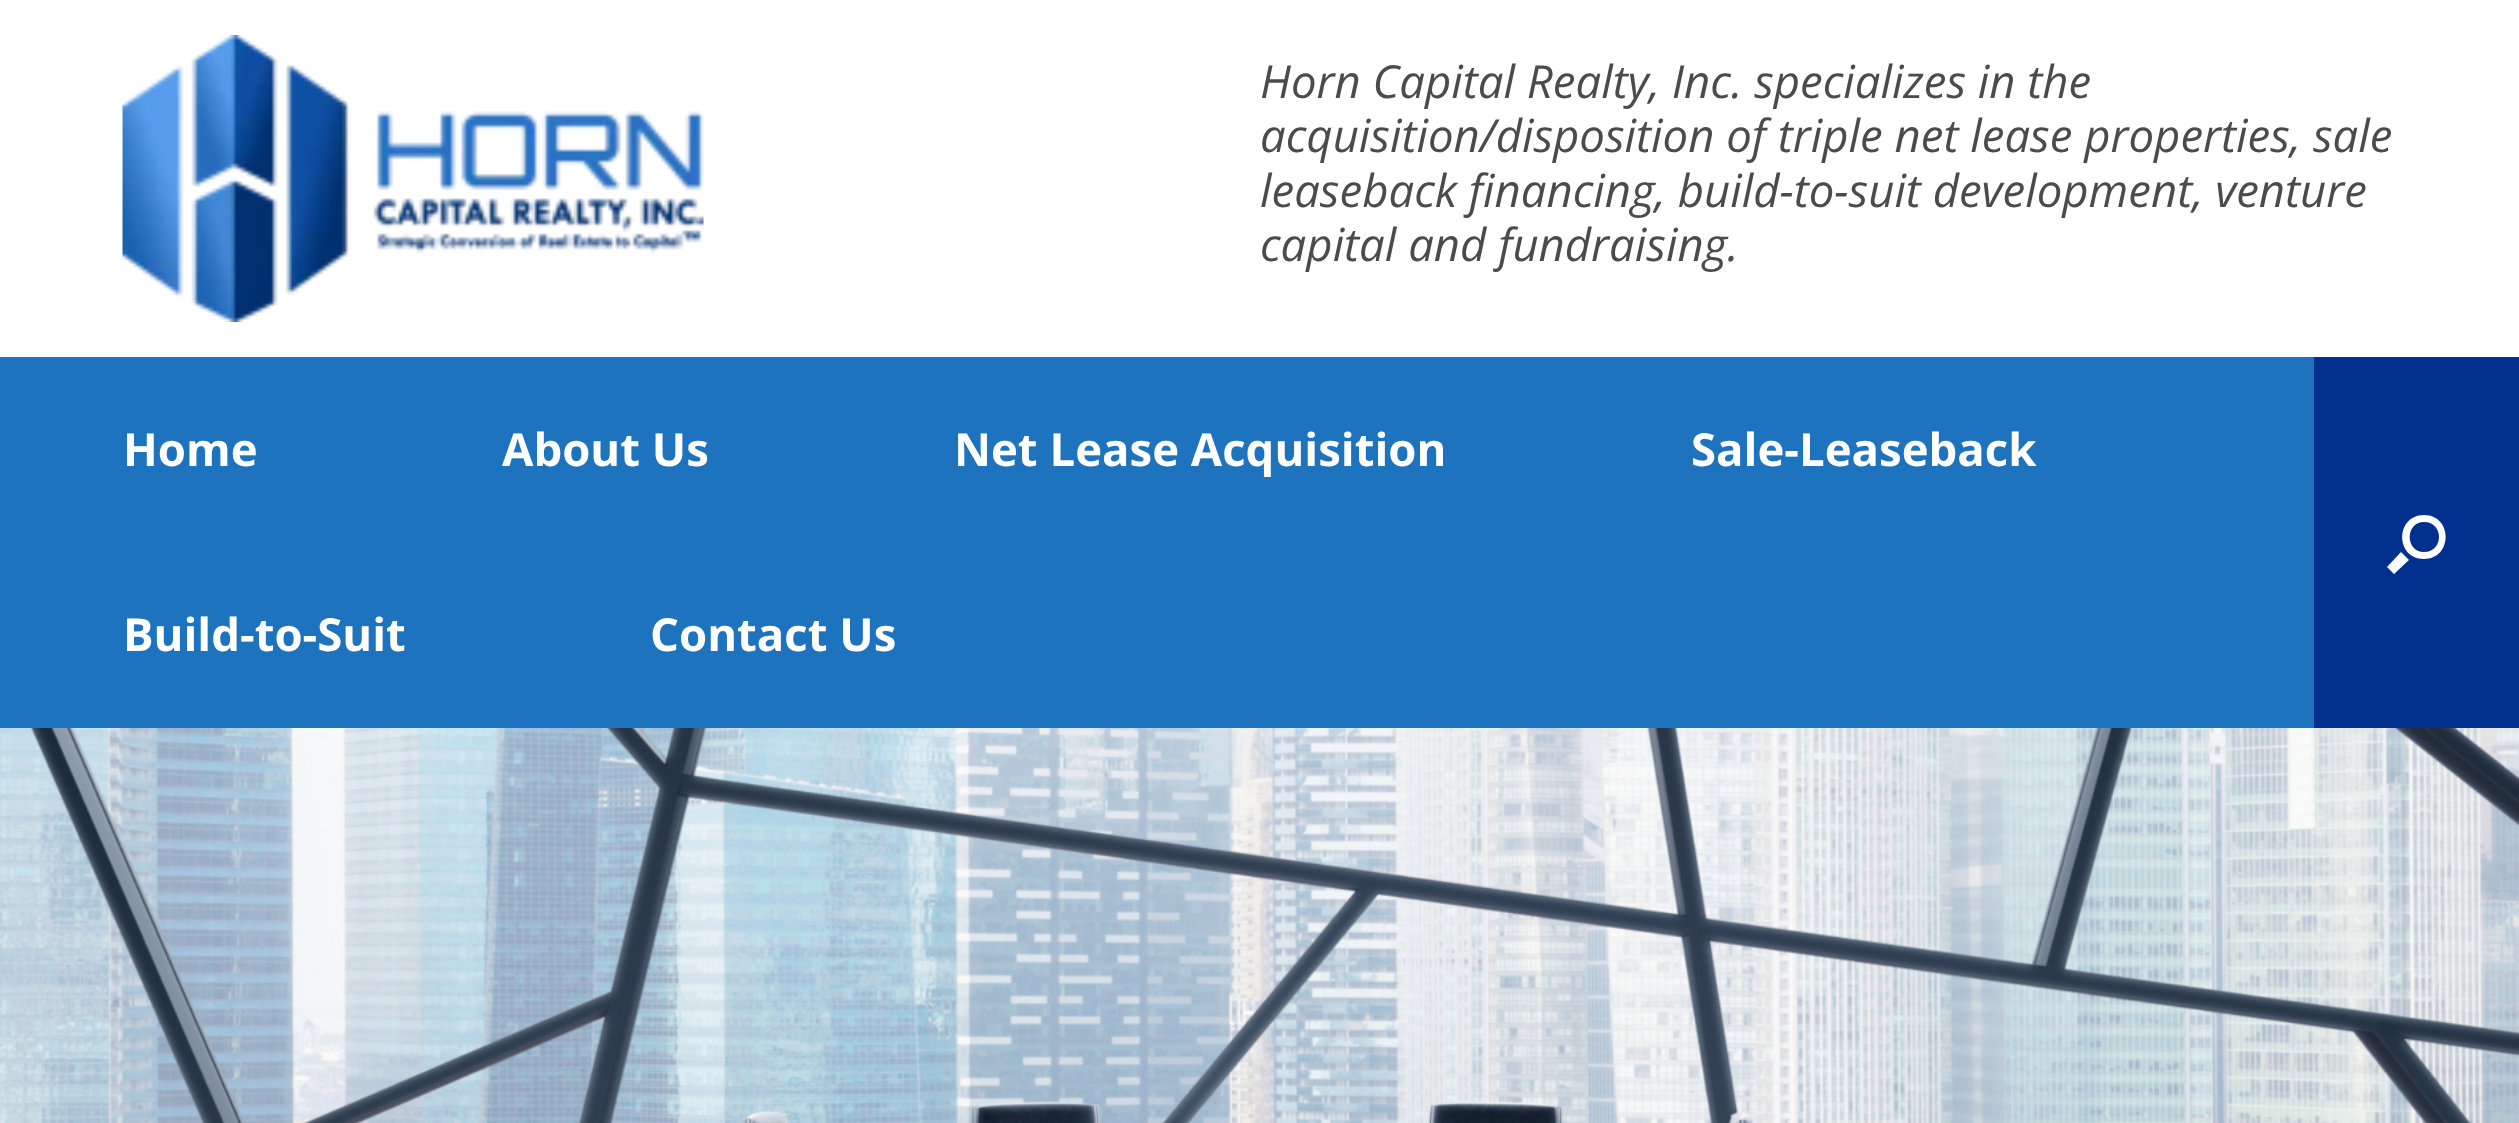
<!DOCTYPE html>
<meta charset="utf-8">
<style>body { margin: 0 } canvas { display: block }</style>
<canvas id="canvas" width="2519" height="1123"></canvas>
<img id="img1" src="img_01.png" hidden>
<img id="img2" src="img_02.png" hidden>
<script>
window.onload = function () {
	const canvas = document.getElementById("canvas");
	const ctx = canvas.getContext("2d");
	ctx.miterLimit = 4;
	ctx.fontKerning = "normal";
	function txt(s, x, y) {
		ctx.fillText(s, x, y);
	}
	function fill(x, y, w, h) {
		ctx.fillRect(x, y, w, h);
	}
	function img(id, x, y, w, h) {
		ctx.drawImage(document.getElementById(id), x, y, w, h);
	}

	ctx.fillStyle = "#FFFFFF";
	fill(0, 0, 2519, 1123);
	img("img1", 122, 35, 582, 287);
	ctx.fillStyle = "#1E73BE";
	fill(0, 357, 2314, 371);
	ctx.fillStyle = "#01308E";
	fill(2314, 357, 205, 371);
	ctx.fillStyle = "#FFFFFF";
	ctx.beginPath();
	ctx.moveTo(2424, 522);
	ctx.bezierCurveTo(2444, 522, 2444, 552, 2424, 552);
	ctx.bezierCurveTo(2405, 552, 2405, 522, 2424, 522);
	ctx.closePath();
	ctx.moveTo(2424, 515);
	ctx.bezierCurveTo(2395, 515, 2395, 559, 2424, 559);
	ctx.bezierCurveTo(2453, 559, 2453, 515, 2424, 515);
	ctx.closePath();
	ctx.moveTo(2401, 552);
	ctx.lineTo(2409, 560);
	ctx.lineTo(2394, 574);
	ctx.lineTo(2387, 567);
	ctx.closePath();
	ctx.fill();
	img("img2", 0, 728, 2519, 395);
	ctx.font = "italic 45.5px Open Sans";
	ctx.fillStyle = "#4B4B4B";
	txt("Horn Capital Realty, Inc. specializes in the", 1260, 98);
	txt("acquisition/disposition of triple net lease properties, sale", 1260, 152);
	txt("leaseback financing, build-to-suit development, venture", 1260, 207);
	txt("capital and fundraising.", 1260, 261);
	ctx.font = "bold 45.5px Open Sans";
	ctx.fillStyle = "#FFFFFF";
	txt("Home", 123, 466);
	txt("About Us", 502, 466);
	txt("Net Lease Acquisition", 954, 466);
	txt("Sale-Leaseback", 1691, 466);
	txt("Build-to-Suit", 123, 651);
	txt("Contact Us", 650, 651);
};
</script>
